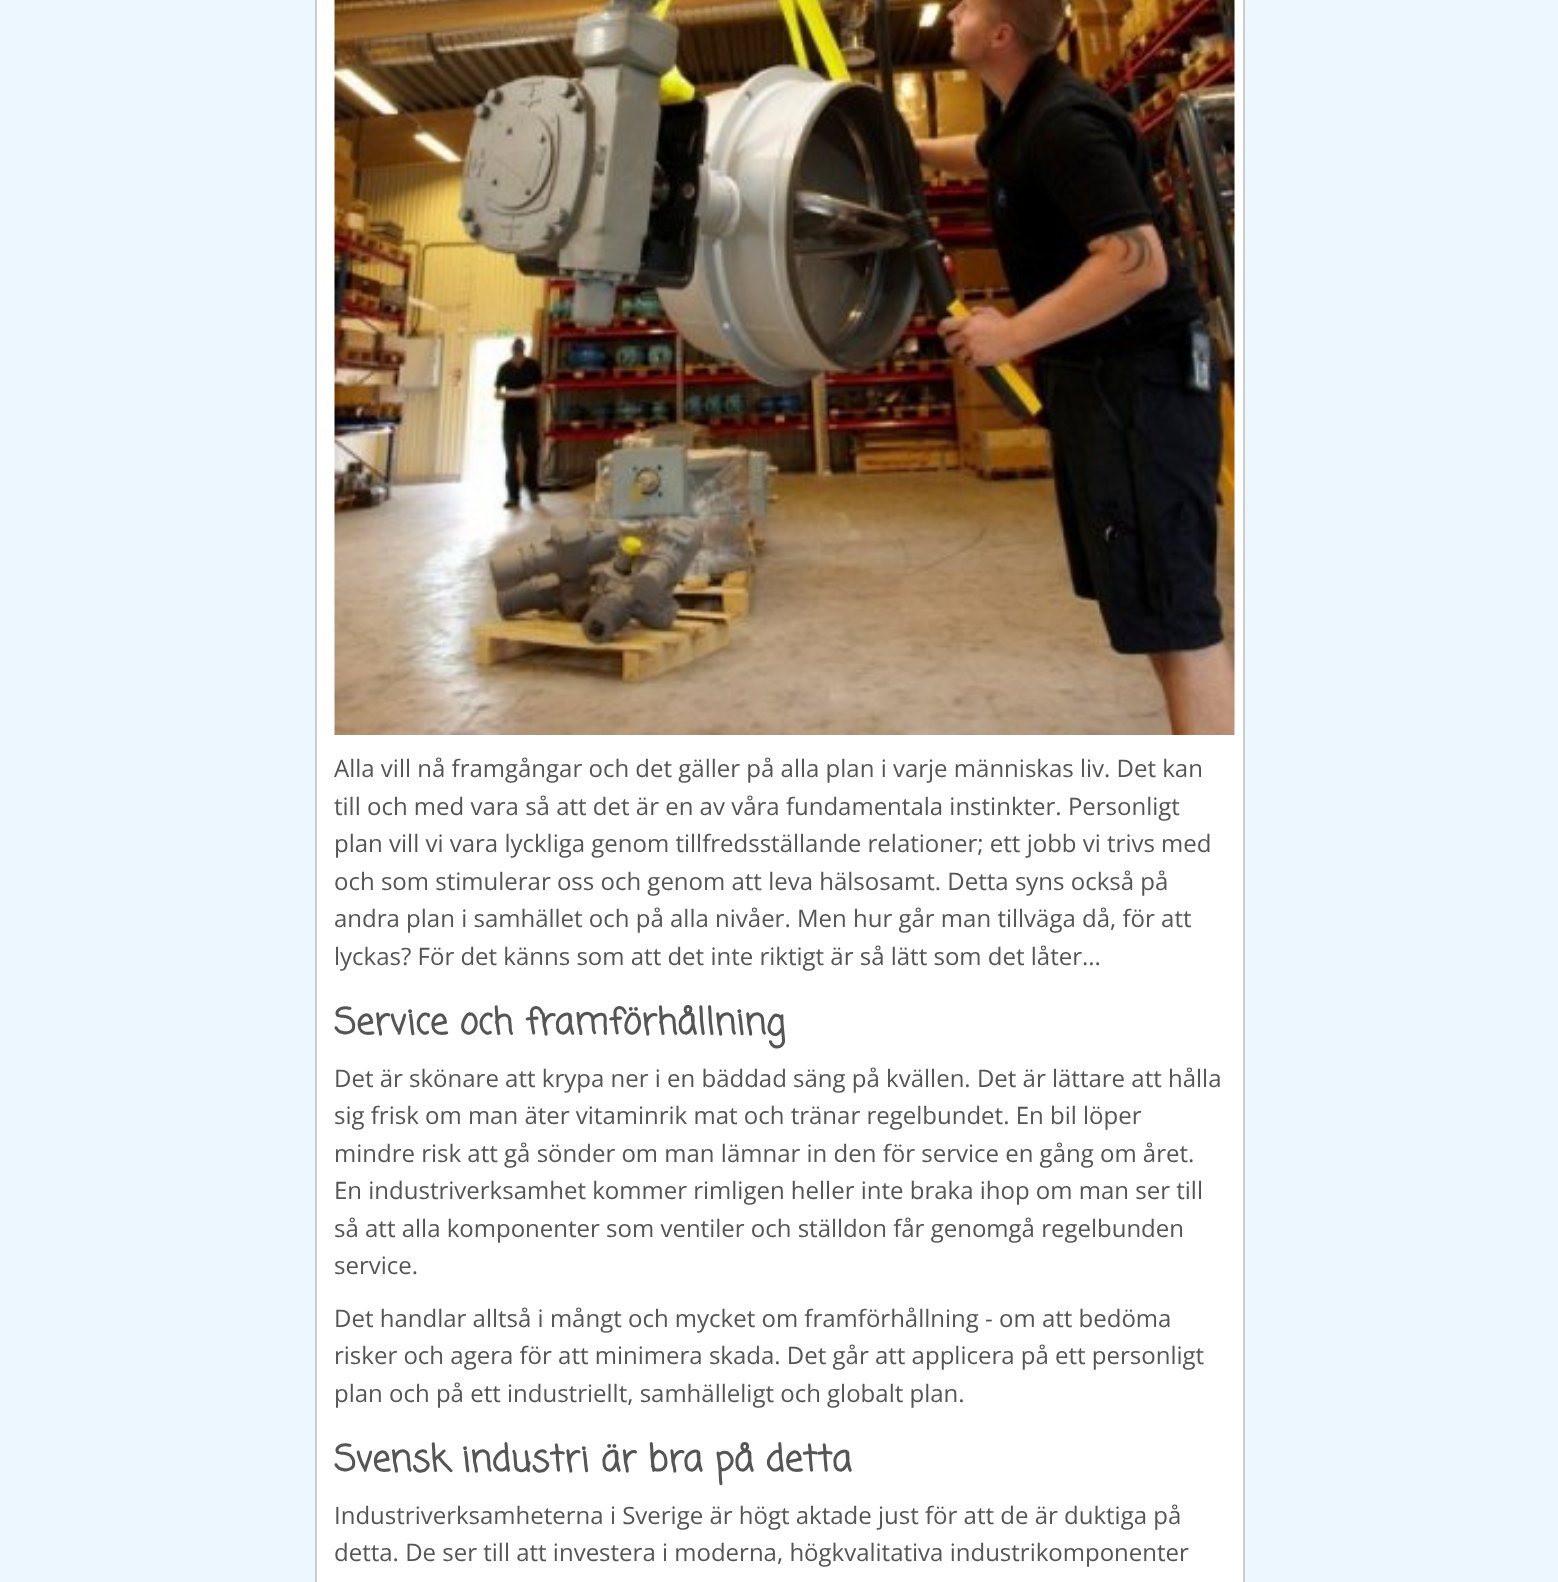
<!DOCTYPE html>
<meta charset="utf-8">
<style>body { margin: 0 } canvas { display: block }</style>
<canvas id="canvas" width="1558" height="1582"></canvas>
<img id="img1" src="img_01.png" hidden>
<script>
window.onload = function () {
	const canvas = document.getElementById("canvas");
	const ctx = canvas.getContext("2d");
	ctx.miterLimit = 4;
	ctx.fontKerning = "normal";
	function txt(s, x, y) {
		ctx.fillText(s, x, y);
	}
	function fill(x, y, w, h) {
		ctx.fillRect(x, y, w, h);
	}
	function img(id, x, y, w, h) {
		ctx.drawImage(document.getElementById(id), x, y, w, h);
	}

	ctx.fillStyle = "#EDF7FF";
	fill(0, 0, 1558, 1582);
	ctx.fillStyle = "#FFFFFF";
	ctx.beginPath();
	ctx.rect(316, -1, 928, 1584);
	ctx.fill();
	ctx.strokeStyle = "#CCCCCC";
	ctx.lineWidth = 2;
	ctx.stroke();
	img("img1", 334, 0, 901, 735);
	ctx.font = "24px Open Sans";
	ctx.fillStyle = "#555555";
	txt("Alla vill nå framgångar och det gäller på alla plan i varje människas liv. Det kan", 334, 777);
	txt("till och med vara så att det är en av våra fundamentala instinkter. Personligt", 334, 815);
	txt("plan vill vi vara lyckliga genom tillfredsställande relationer; ett jobb vi trivs med", 334, 852);
	txt("och som stimulerar oss och genom att leva hälsosamt. Detta syns också på", 334, 890);
	txt("andra plan i samhället och på alla nivåer. Men hur går man tillväga då, för att", 334, 927);
	txt("lyckas? För det känns som att det inte riktigt är så lätt som det låter...", 334, 965);
	ctx.font = "bold 36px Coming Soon";
	txt("Service och framförhållning", 334, 1034);
	ctx.font = "24px Open Sans";
	txt("Det är skönare att krypa ner i en bäddad säng på kvällen. Det är lättare att hålla", 334, 1087);
	txt("sig frisk om man äter vitaminrik mat och tränar regelbundet. En bil löper", 334, 1124);
	txt("mindre risk att gå sönder om man lämnar in den för service en gång om året.", 334, 1162);
	txt("En industriverksamhet kommer rimligen heller inte braka ihop om man ser till", 334, 1199);
	txt("så att alla komponenter som ventiler och ställdon får genomgå regelbunden", 334, 1237);
	txt("service.", 334, 1274);
	txt("Det handlar alltså i mångt och mycket om framförhållning - om att bedöma", 334, 1327);
	txt("risker och agera för att minimera skada. Det går att applicera på ett personligt", 334, 1364);
	txt("plan och på ett industriellt, samhälleligt och globalt plan.", 334, 1402);
	ctx.font = "bold 36px Coming Soon";
	txt("Svensk industri är bra på detta", 334, 1471);
	ctx.font = "24px Open Sans";
	txt("Industriverksamheterna i Sverige är högt aktade just för att de är duktiga på", 334, 1524);
	txt("detta. De ser till att investera i moderna, högkvalitativa industrikomponenter", 334, 1561);
};
</script>
